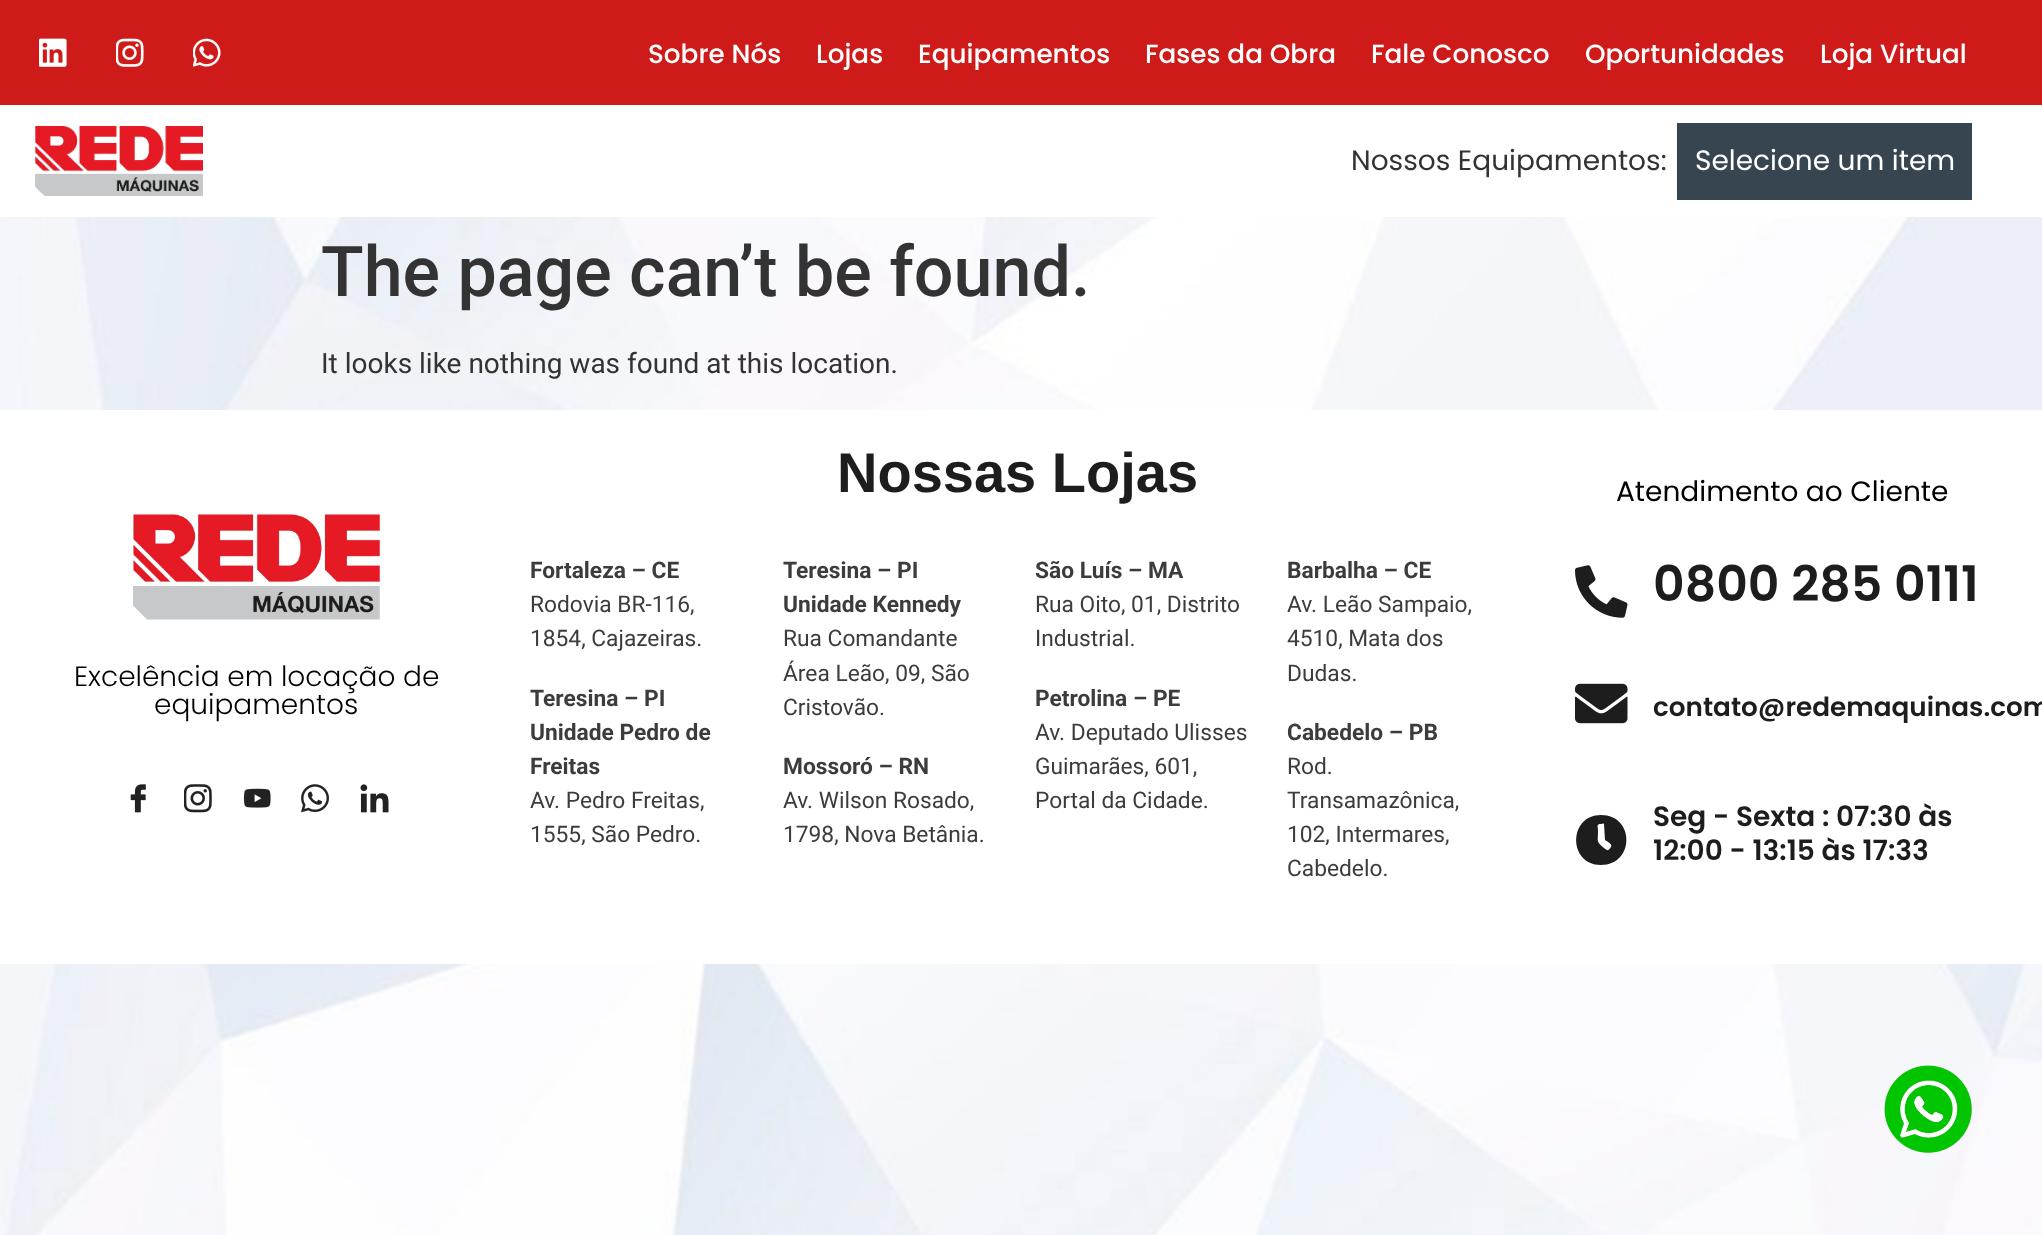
<!DOCTYPE html>
<meta charset="utf-8">
<style>body { margin: 0 } canvas { display: block }</style>
<canvas id="canvas" width="2042" height="1235"></canvas>
<img id="img1" src="img_01.png" hidden>
<img id="img2" src="img_02.png" hidden>
<img id="img3" src="img_03.png" hidden>
<img id="img4" src="img_04.png" hidden>
<img id="img5" src="img_05.png" hidden>
<img id="img6" src="img_06.png" hidden>
<img id="img7" src="img_07.png" hidden>
<img id="img8" src="img_08.png" hidden>
<img id="img9" src="img_09.png" hidden>
<img id="img10" src="img_10.png" hidden>
<img id="img11" src="img_11.png" hidden>
<img id="img12" src="img_12.png" hidden>
<img id="img13" src="img_13.png" hidden>
<img id="img14" src="img_14.png" hidden>
<script>
window.onload = function () {
	const canvas = document.getElementById("canvas");
	const ctx = canvas.getContext("2d");
	ctx.miterLimit = 4;
	ctx.fontKerning = "normal";
	function txt(s, x, y) {
		ctx.fillText(s, x, y);
	}
	function fill(x, y, w, h) {
		ctx.fillRect(x, y, w, h);
	}
	function img(id, x, y, w, h) {
		ctx.drawImage(document.getElementById(id), x, y, w, h);
	}

	ctx.fillStyle = "#FFFFFF";
	fill(0, 0, 2042, 1235);
	img("img1", 0, 217, 2042, 1018);
	ctx.fillStyle = "#CF1A1A";
	fill(0, 0, 2042, 105);
	img("img2", 39, 38, 28, 29);
	img("img3", 116, 38, 28, 29);
	img("img4", 193, 38, 28, 29);
	img("img5", 35, 126, 168, 70);
	ctx.fillStyle = "#36454F";
	fill(1677, 123, 295, 77);
	ctx.fillStyle = "#FFFFFF";
	fill(0, 410, 2042, 554);
	img("img6", 133, 514, 247, 106);
	img("img7", 130, 784, 16, 29);
	img("img8", 184, 784, 28, 29);
	img("img9", 243, 788, 28, 20);
	img("img10", 301, 784, 28, 29);
	img("img11", 360, 784, 29, 29);
	img("img12", 1575, 565, 53, 53);
	img("img13", 1575, 683, 53, 41);
	ctx.fillStyle = "#1D1D1E";
	ctx.beginPath();
	ctx.moveTo(1601, 815);
	ctx.bezierCurveTo(1568, 815, 1568, 865, 1601, 865);
	ctx.bezierCurveTo(1635, 865, 1635, 815, 1601, 815);
	ctx.closePath();
	ctx.moveTo(1611, 847);
	ctx.bezierCurveTo(1608, 851, 1608, 851, 1604, 848);
	ctx.bezierCurveTo(1596, 841, 1598, 842, 1598, 831);
	ctx.bezierCurveTo(1598, 826, 1596, 824, 1601, 824);
	ctx.bezierCurveTo(1602, 824, 1604, 823, 1604, 824);
	ctx.lineTo(1605, 840);
	ctx.bezierCurveTo(1606, 841, 1613, 844, 1611, 847);
	ctx.closePath();
	ctx.fill();
	img("img14", 1884, 1065, 88, 88);
	ctx.font = "500 26.25px Poppins";
	ctx.fillStyle = "#FFFFFF";
	txt("Sobre Nós", 648, 63);
	txt("Lojas", 816, 63);
	txt("Equipamentos", 918, 63);
	txt("Fases da Obra", 1145, 63);
	txt("Fale Conosco", 1371, 63);
	txt("Oportunidades", 1585, 63);
	txt("Loja Virtual", 1820, 63);
	ctx.font = "28px Poppins";
	ctx.fillStyle = "#333333";
	txt("Nossos Equipamentos:", 1351, 170);
	ctx.fillStyle = "#FFFFFF";
	txt("Selecione um item", 1695, 170);
	ctx.font = "500 70px Roboto";
	ctx.fillStyle = "#333333";
	txt("The page can’t be found.", 321, 296);
	ctx.font = "28px Roboto";
	txt("It looks like nothing was found at this location.", 321, 373);
	ctx.font = "300 28px Poppins";
	ctx.fillStyle = "#000000";
	txt("Excelência em locação de", 74, 686);
	txt("equipamentos", 154, 714);
	ctx.font = "bold 56px Liberation Sans";
	ctx.fillStyle = "#1D1D1E";
	txt("Nossas Lojas", 837, 492);
	ctx.font = "bold 22.75px Roboto";
	ctx.fillStyle = "#3C3C3C";
	txt("Fortaleza – CE", 530, 578);
	ctx.font = "22.75px Roboto";
	txt("Rodovia BR-116,", 530, 612);
	txt("1854, Cajazeiras.", 530, 646);
	ctx.font = "bold 22.75px Roboto";
	txt("Teresina – PI", 530, 706);
	txt("Unidade Pedro de", 530, 740);
	txt("Freitas", 530, 774);
	ctx.font = "22.75px Roboto";
	txt("Av. Pedro Freitas,", 530, 808);
	txt("1555, São Pedro.", 530, 842);
	ctx.font = "bold 22.75px Roboto";
	txt("Teresina – PI", 783, 578);
	txt("Unidade Kennedy", 783, 612);
	ctx.font = "22.75px Roboto";
	txt("Rua Comandante", 783, 646);
	txt("Área Leão, 09, São", 783, 681);
	txt("Cristovão.", 783, 715);
	ctx.font = "bold 22.75px Roboto";
	txt("Mossoró – RN", 783, 774);
	ctx.font = "22.75px Roboto";
	txt("Av. Wilson Rosado,", 783, 808);
	txt("1798, Nova Betânia.", 783, 842);
	ctx.font = "bold 22.75px Roboto";
	txt("São Luís – MA", 1035, 578);
	ctx.font = "22.75px Roboto";
	txt("Rua Oito, 01, Distrito", 1035, 612);
	txt("Industrial.", 1035, 646);
	ctx.font = "bold 22.75px Roboto";
	txt("Petrolina – PE", 1035, 706);
	ctx.font = "22.75px Roboto";
	txt("Av. Deputado Ulisses", 1035, 740);
	txt("Guimarães, 601,", 1035, 774);
	txt("Portal da Cidade.", 1035, 808);
	ctx.font = "bold 22.75px Roboto";
	txt("Barbalha – CE", 1287, 578);
	ctx.font = "22.75px Roboto";
	txt("Av. Leão Sampaio,", 1287, 612);
	txt("4510, Mata dos", 1287, 646);
	txt("Dudas.", 1287, 681);
	ctx.font = "bold 22.75px Roboto";
	txt("Cabedelo – PB", 1287, 740);
	ctx.font = "22.75px Roboto";
	txt("Rod.", 1287, 774);
	txt("Transamazônica,", 1287, 808);
	txt("102, Intermares,", 1287, 842);
	txt("Cabedelo.", 1287, 876);
	ctx.font = "28px Poppins";
	ctx.fillStyle = "#000000";
	txt("Atendimento ao Cliente", 1616, 501);
	ctx.font = "600 49px Poppins";
	ctx.fillStyle = "#1D1D1E";
	txt("0800 285 0111", 1653, 601);
	ctx.font = "600 26.25px Poppins";
	txt("contato@redemaquinas.com", 1653, 716);
	ctx.font = "600 28px Poppins";
	txt("Seg - Sexta : 07:30 às", 1653, 826);
	txt("12:00 - 13:15 às 17:33", 1653, 860);
};
</script>
